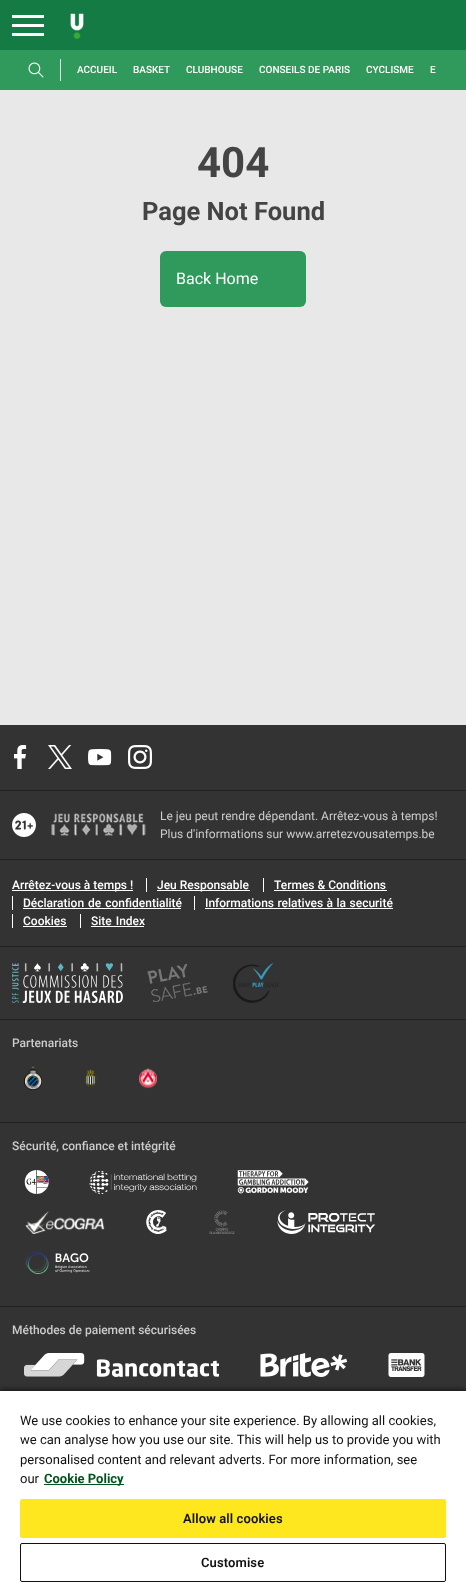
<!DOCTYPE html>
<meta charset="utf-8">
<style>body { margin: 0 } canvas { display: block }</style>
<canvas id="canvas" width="466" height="1587"></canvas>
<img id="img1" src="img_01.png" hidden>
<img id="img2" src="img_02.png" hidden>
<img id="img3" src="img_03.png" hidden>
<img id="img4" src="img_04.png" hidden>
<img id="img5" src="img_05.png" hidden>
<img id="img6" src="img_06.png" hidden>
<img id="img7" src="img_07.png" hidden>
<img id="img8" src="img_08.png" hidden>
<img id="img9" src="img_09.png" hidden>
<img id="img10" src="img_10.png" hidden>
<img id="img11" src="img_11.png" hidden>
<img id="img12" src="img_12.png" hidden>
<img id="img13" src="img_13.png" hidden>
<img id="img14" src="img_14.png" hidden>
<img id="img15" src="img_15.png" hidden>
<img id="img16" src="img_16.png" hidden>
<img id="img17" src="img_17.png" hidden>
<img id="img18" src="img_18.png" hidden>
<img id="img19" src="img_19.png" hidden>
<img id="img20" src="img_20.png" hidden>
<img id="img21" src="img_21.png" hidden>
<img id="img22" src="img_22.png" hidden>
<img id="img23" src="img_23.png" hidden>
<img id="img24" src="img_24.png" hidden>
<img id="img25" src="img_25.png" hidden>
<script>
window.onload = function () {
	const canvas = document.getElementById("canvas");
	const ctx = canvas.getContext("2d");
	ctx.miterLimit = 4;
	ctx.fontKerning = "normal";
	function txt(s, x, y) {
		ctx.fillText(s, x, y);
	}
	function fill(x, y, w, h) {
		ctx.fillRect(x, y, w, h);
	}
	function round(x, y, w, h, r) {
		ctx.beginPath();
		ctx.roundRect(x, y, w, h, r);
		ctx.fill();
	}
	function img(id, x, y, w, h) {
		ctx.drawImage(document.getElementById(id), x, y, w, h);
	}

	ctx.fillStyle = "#E8E8E8";
	fill(0, 0, 466, 1587);
	ctx.fillStyle = "#147B45";
	fill(0, 0, 466, 50);
	ctx.fillStyle = "#FFFFFF";
	fill(12, 15, 32, 3);
	fill(12, 24, 32, 3);
	fill(12, 33, 32, 3);
	img("img1", 70, 13, 14, 26);
	ctx.fillStyle = "#309A5C";
	fill(0, 50, 466, 40);
	ctx.fillStyle = "#DEE2E6";
	fill(60, 59, 1, 22);
	img("img2", 28, 62, 16, 16);
	ctx.fillStyle = "#309A5C";
	round(160, 251, 146, 56, 6);
	ctx.fillStyle = "#333333";
	fill(0, 725, 466, 666);
	ctx.fillStyle = "#222222";
	fill(0, 790, 466, 1);
	img("img3", 14, 745, 13, 24);
	img("img4", 48, 745, 24, 24);
	img("img5", 88, 749, 24, 17);
	img("img6", 128, 745, 24, 24);
	img("img7", 12, 813, 24, 24);
	img("img8", 51, 813, 95, 23);
	fill(0, 859, 466, 1);
	ctx.fillStyle = "#FFFFFF";
	fill(12, 890, 121, 1);
	fill(146, 878, 1, 14);
	fill(157, 890, 93, 1);
	fill(263, 878, 1, 14);
	fill(274, 890, 113, 1);
	fill(12, 896, 1, 14);
	fill(23, 908, 158, 1);
	fill(194, 896, 1, 14);
	fill(205, 908, 188, 1);
	fill(12, 914, 1, 14);
	fill(23, 926, 44, 1);
	fill(80, 914, 1, 14);
	fill(91, 926, 53, 1);
	ctx.fillStyle = "#222222";
	fill(0, 946, 466, 1);
	img("img9", 12, 963, 111, 40);
	img("img10", 147, 964, 61, 38);
	img("img11", 233, 963, 46, 40);
	fill(0, 1019, 466, 1);
	fill(0, 1122, 466, 1);
	img("img12", 24, 1066, 18, 24);
	img("img13", 84, 1069, 13, 18);
	img("img14", 139, 1068, 18, 21);
	fill(0, 1306, 466, 1);
	img("img15", 24, 1170, 25, 24);
	img("img16", 89, 1171, 108, 23);
	img("img17", 237, 1170, 72, 24);
	img("img18", 25, 1211, 80, 23);
	img("img19", 146, 1210, 21, 24);
	img("img20", 209, 1210, 26, 24);
	img("img21", 277, 1210, 99, 24);
	img("img22", 25, 1250, 65, 24);
	img("img23", 24, 1353, 195, 24);
	img("img24", 260, 1353, 88, 24);
	img("img25", 388, 1353, 37, 24);
	ctx.fillStyle = "rgba(0, 0, 0, 0.35)";
	ctx.filter = "blur(2px)";
	ctx.beginPath();
	ctx.rect(0, 1389, 466, 198);
	ctx.fill();
	ctx.filter = "none";
	ctx.fillStyle = "rgba(0, 0, 0, 0.2)";
	ctx.filter = "blur(2px)";
	ctx.beginPath();
	ctx.rect(0, 1391, 466, 196);
	ctx.fill();
	ctx.filter = "none";
	ctx.fillStyle = "#FFFFFF";
	fill(0, 1391, 466, 196);
	ctx.fillStyle = "#00531D";
	fill(44, 1484, 80, 1);
	ctx.fillStyle = "#FFE71F";
	ctx.beginPath();
	ctx.roundRect(20.5, 1499.5, 425, 38, 1.5);
	ctx.fill();
	ctx.strokeStyle = "#FFE71F";
	ctx.stroke();
	ctx.beginPath();
	ctx.roundRect(20.5, 1543.5, 425, 38, 1.5);
	ctx.strokeStyle = "#111111";
	ctx.stroke();
	ctx.font = "500 10px Roboto";
	ctx.fillStyle = "#FFFFFF";
	txt("ACCUEIL", 77, 73);
	txt("BASKET", 133, 73);
	txt("CLUBHOUSE", 186, 73);
	txt("CONSEILS DE PARIS", 259, 73);
	txt("CYCLISME", 366, 73);
	txt("E", 430, 73);
	ctx.font = "bold 42px Roboto";
	ctx.fillStyle = "#444444";
	txt("404", 197, 177);
	ctx.font = "bold 25.5px Roboto";
	txt("Page Not Found", 142, 220);
	ctx.font = "16px Roboto";
	ctx.fillStyle = "#FFFFFF";
	txt("Back Home", 176, 284);
	ctx.font = "12px Roboto";
	ctx.fillStyle = "#CCCCCC";
	txt("Le jeu peut rendre dépendant. Arrêtez-vous à temps!", 160, 820);
	txt("Plus d'informations sur www.arretezvousatemps.be", 160, 838);
	ctx.font = "500 12px Roboto";
	ctx.fillStyle = "#FFFFFF";
	txt("Arrêtez-vous à temps !", 12, 889);
	txt("Jeu Responsable", 157, 889);
	txt("Termes & Conditions", 274, 889);
	ctx.wordSpacing = "1px";
	txt("Déclaration de confidentialité", 23, 907);
	ctx.wordSpacing = "0.5px";
	txt("Informations relatives à la securité", 205, 907);
	ctx.wordSpacing = "0px";
	txt("Cookies", 23, 925);
	ctx.wordSpacing = "1px";
	txt("Site Index", 91, 925);
	ctx.wordSpacing = "0px";
	ctx.fillStyle = "#CCCCCC";
	txt("Partenariats", 12, 1047);
	txt("Sécurité, confiance et intégrité", 12, 1150);
	txt("Méthodes de paiement sécurisées", 12, 1334);
	ctx.font = "13px Roboto";
	ctx.fillStyle = "#111111";
	txt("We use cookies to enhance your site experience. By allowing all cookies,", 20, 1425);
	txt("we can analyse how you use our site. This will help us to provide you with", 20, 1444);
	txt("personalised content and relevant adverts. For more information, see", 20, 1464);
	txt("our", 20, 1483);
	ctx.font = "bold 13px Roboto";
	ctx.fillStyle = "#00531D";
	txt("Cookie Policy", 44, 1483);
	ctx.letterSpacing = "0.1px";
	ctx.font = "600 13px Roboto";
	ctx.fillStyle = "#111111";
	txt("Allow all cookies", 183, 1523);
	txt("Customise", 201, 1567);
};
</script>
